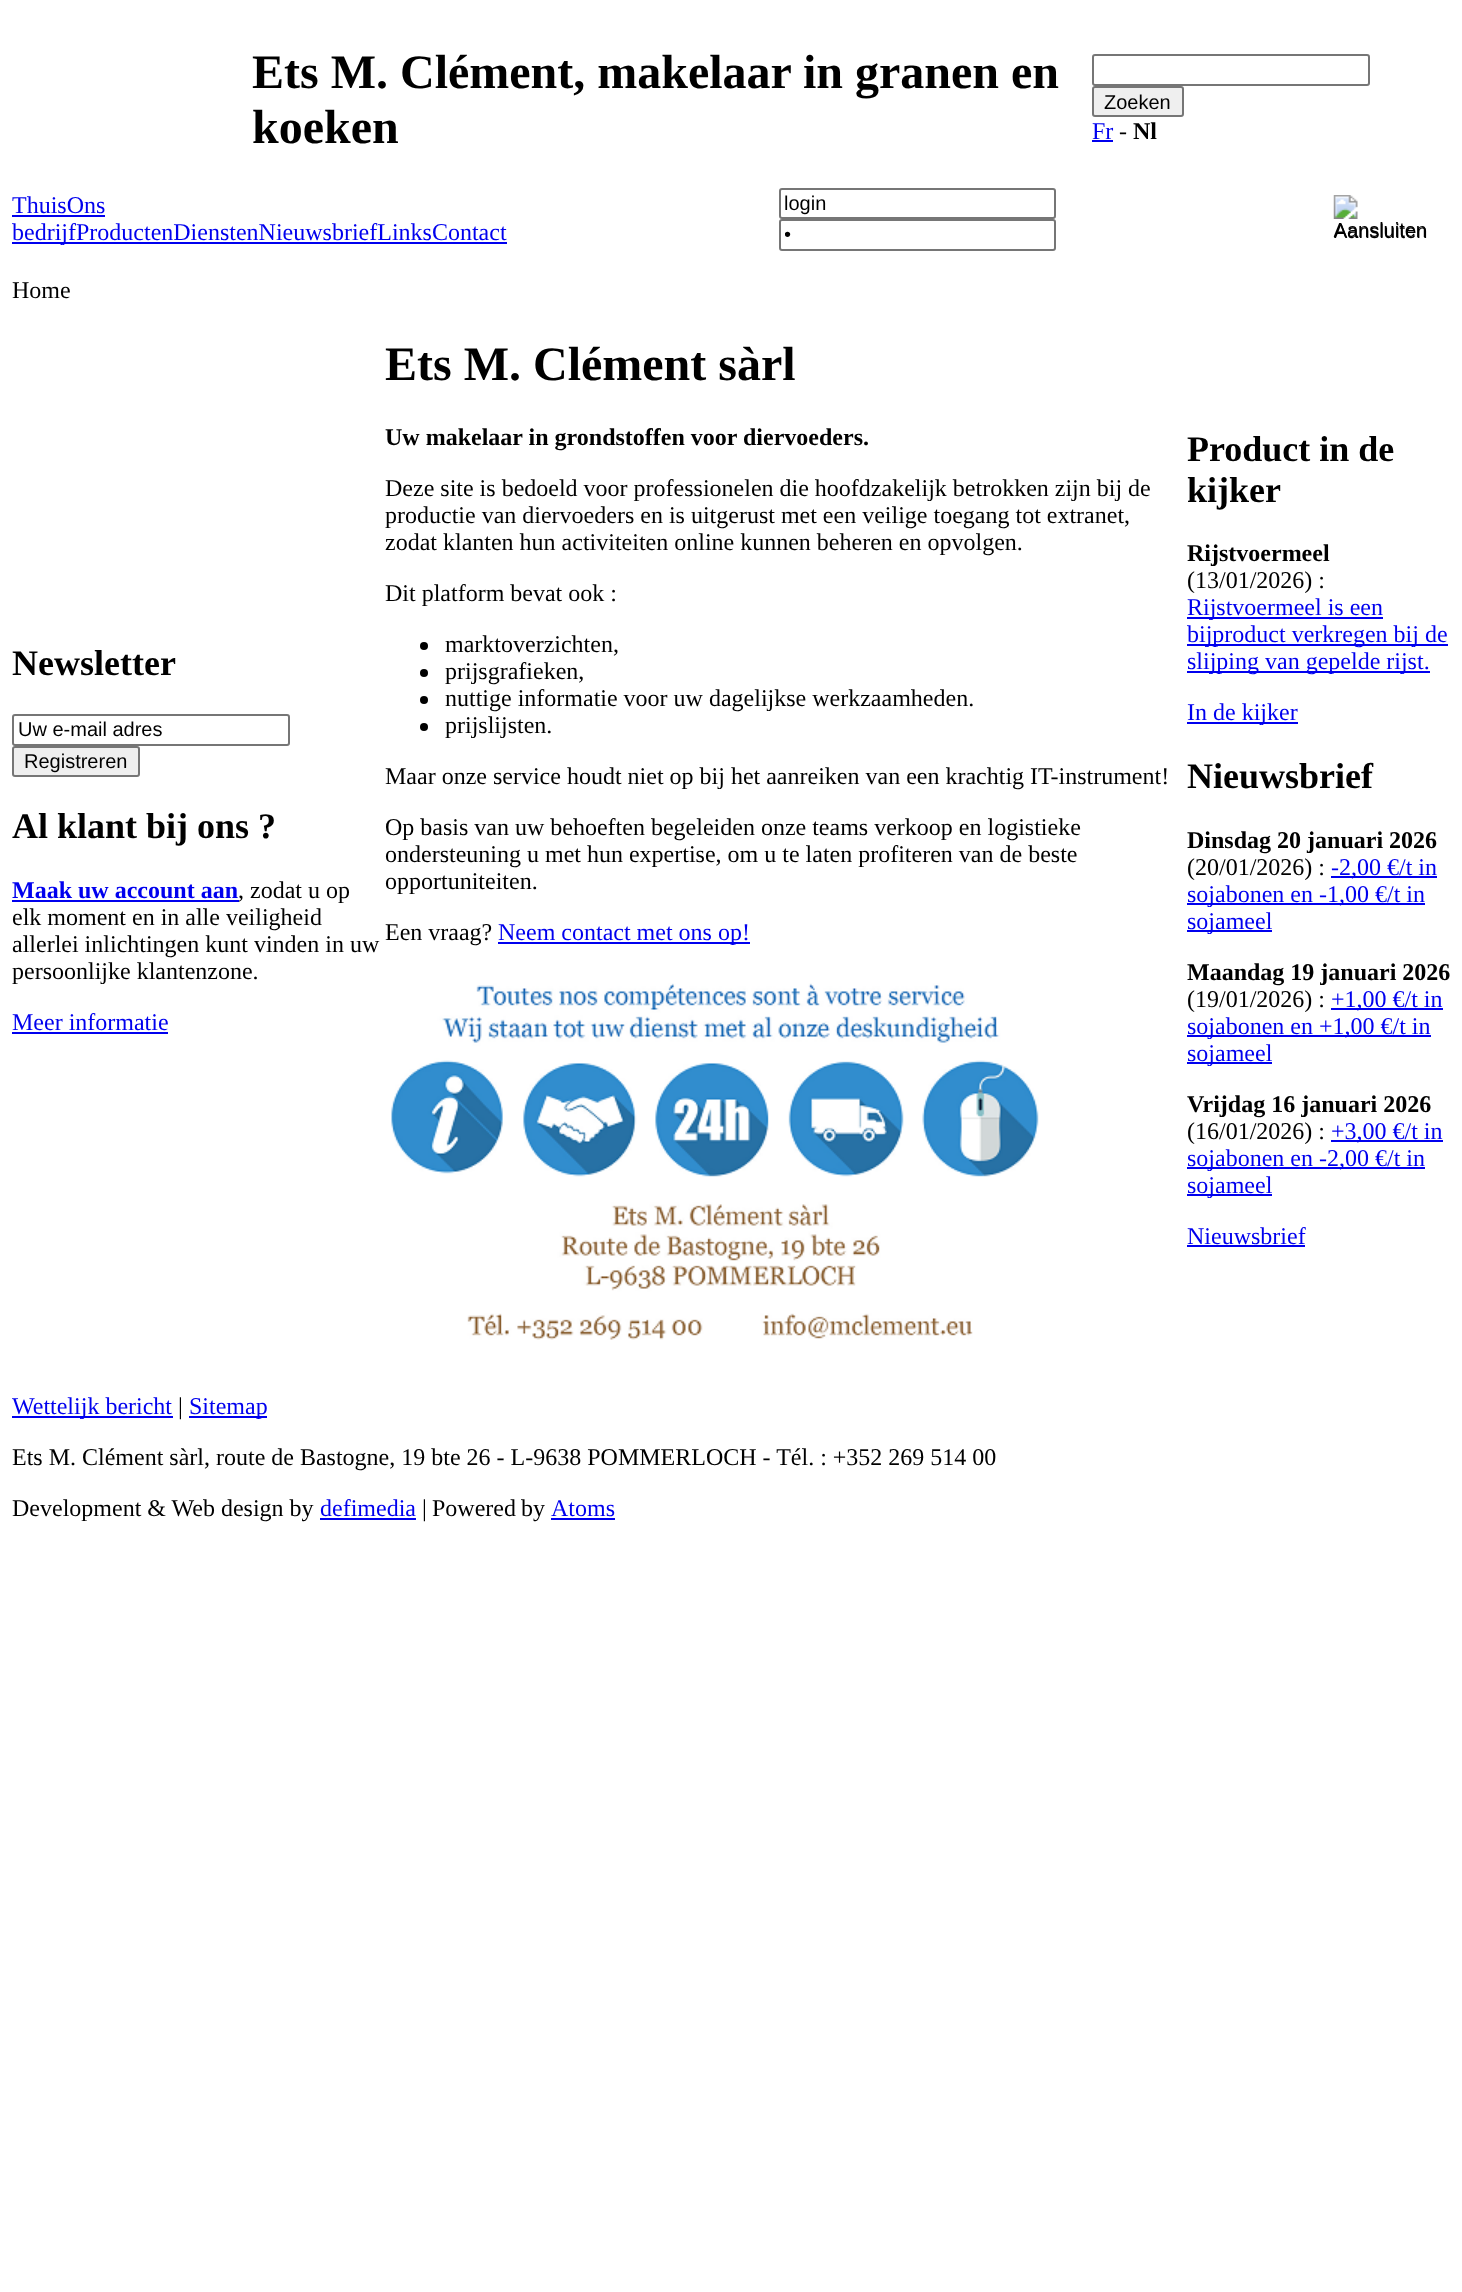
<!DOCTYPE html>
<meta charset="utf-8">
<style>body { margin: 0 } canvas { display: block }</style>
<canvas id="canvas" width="1462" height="2292"></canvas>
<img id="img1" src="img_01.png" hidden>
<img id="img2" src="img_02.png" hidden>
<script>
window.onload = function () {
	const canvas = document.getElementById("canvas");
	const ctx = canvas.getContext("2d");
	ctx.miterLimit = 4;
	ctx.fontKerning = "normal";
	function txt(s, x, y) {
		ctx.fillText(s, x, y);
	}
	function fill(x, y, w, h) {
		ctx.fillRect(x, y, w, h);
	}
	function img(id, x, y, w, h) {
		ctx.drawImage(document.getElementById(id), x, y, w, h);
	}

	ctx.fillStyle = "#FFFFFF";
	fill(0, 0, 1462, 2292);
	ctx.beginPath();
	ctx.roundRect(1093, 55, 276, 30, 2);
	ctx.strokeStyle = "#767676";
	ctx.lineWidth = 2;
	ctx.stroke();
	ctx.fillStyle = "#EFEFEF";
	ctx.beginPath();
	ctx.roundRect(1093, 87, 90, 29, 2);
	ctx.fill();
	ctx.stroke();
	ctx.fillStyle = "#0000EE";
	fill(1092, 140, 21, 2);
	fill(12, 215, 93, 2);
	fill(12, 242, 246, 2);
	fill(258, 242, 249, 2);
	ctx.beginPath();
	ctx.roundRect(780, 189, 275, 29, 2);
	ctx.stroke();
	ctx.beginPath();
	ctx.roundRect(780, 220, 275, 30, 2);
	ctx.stroke();
	img("img1", 1333, 195, 93, 42);
	ctx.beginPath();
	ctx.roundRect(13, 715, 276, 30, 2);
	ctx.stroke();
	ctx.fillStyle = "#EFEFEF";
	ctx.beginPath();
	ctx.roundRect(13, 747, 126, 29, 2);
	ctx.fill();
	ctx.stroke();
	ctx.fillStyle = "#0000EE";
	fill(12, 900, 227, 2);
	fill(12, 1032, 156, 2);
	ctx.fillStyle = "#000000";
	ctx.beginPath();
	ctx.arc(424, 646, 4, 0, Math.PI * 2);
	ctx.fill();
	ctx.beginPath();
	ctx.arc(424, 673, 4, 0, Math.PI * 2);
	ctx.fill();
	ctx.beginPath();
	ctx.arc(424, 700, 4, 0, Math.PI * 2);
	ctx.fill();
	ctx.beginPath();
	ctx.arc(424, 727, 4, 0, Math.PI * 2);
	ctx.fill();
	ctx.fillStyle = "#0000EE";
	fill(498, 942, 252, 2);
	img("img2", 391, 983, 648, 357);
	fill(1187, 617, 196, 2);
	fill(1187, 644, 261, 2);
	fill(1187, 671, 243, 2);
	fill(1187, 722, 111, 2);
	fill(1331, 876, 106, 2);
	fill(1187, 903, 238, 2);
	fill(1187, 930, 85, 2);
	fill(1331, 1008, 112, 2);
	fill(1187, 1035, 244, 2);
	fill(1187, 1062, 85, 2);
	fill(1331, 1140, 112, 2);
	fill(1187, 1167, 238, 2);
	fill(1187, 1194, 85, 2);
	fill(1187, 1245, 118, 2);
	fill(12, 1416, 161, 2);
	fill(189, 1416, 78, 2);
	fill(320, 1518, 96, 2);
	fill(551, 1518, 64, 2);
	ctx.font = "bold 48px Liberation Serif";
	ctx.fillStyle = "#000000";
	txt("Ets M. Clément, makelaar in granen en", 252, 88);
	txt("koeken", 252, 143);
	ctx.font = "20px Liberation Sans";
	txt("Zoeken", 1104, 109);
	ctx.font = "24px Liberation Serif";
	ctx.fillStyle = "#0000EE";
	txt("Fr", 1092, 139);
	ctx.fillStyle = "#000000";
	txt("-", 1119, 139);
	ctx.font = "bold 24px Liberation Serif";
	txt("Nl", 1133, 139);
	ctx.font = "24px Liberation Serif";
	ctx.fillStyle = "#0000EE";
	txt("ThuisOns", 12, 213);
	txt("bedrijfProductenDienstenNieuwsbriefLinksContact", 12, 240);
	ctx.font = "20px Liberation Sans";
	ctx.fillStyle = "#000000";
	txt("login", 784, 210);
	ctx.save();
	ctx.beginPath();
	ctx.rect(785, 224, 265, 22);
	ctx.clip();
	txt("•", 784, 241);
	ctx.restore();
	txt("Aansluiten", 1334, 238);
	ctx.font = "24px Liberation Serif";
	txt("Home", 12, 298);
	ctx.font = "bold 36px Liberation Serif";
	txt("Newsletter", 12, 675);
	ctx.font = "20px Liberation Sans";
	txt("Uw e-mail adres", 18, 736);
	txt("Registreren", 24, 768);
	ctx.font = "bold 36px Liberation Serif";
	txt("Al klant bij ons ?", 12, 838);
	ctx.font = "bold 24px Liberation Serif";
	ctx.fillStyle = "#0000EE";
	txt("Maak uw account aan", 12, 898);
	ctx.font = "24px Liberation Serif";
	ctx.fillStyle = "#000000";
	txt(", zodat u op", 238, 898);
	txt("elk moment en in alle veiligheid", 12, 925);
	txt("allerlei inlichtingen kunt vinden in uw", 12, 952);
	txt("persoonlijke klantenzone.", 12, 979);
	ctx.fillStyle = "#0000EE";
	txt("Meer informatie", 12, 1030);
	ctx.font = "bold 48px Liberation Serif";
	ctx.fillStyle = "#000000";
	txt("Ets M. Clément sàrl", 385, 380);
	ctx.font = "bold 24px Liberation Serif";
	txt("Uw makelaar in grondstoffen voor diervoeders.", 385, 445);
	ctx.font = "24px Liberation Serif";
	txt("Deze site is bedoeld voor professionelen die hoofdzakelijk betrokken zijn bij de", 385, 496);
	txt("productie van diervoeders en is uitgerust met een veilige toegang tot extranet,", 385, 523);
	txt("zodat klanten hun activiteiten online kunnen beheren en opvolgen.", 385, 550);
	txt("Dit platform bevat ook :", 385, 601);
	txt("marktoverzichten,", 445, 652);
	txt("prijsgrafieken,", 445, 679);
	txt("nuttige informatie voor uw dagelijkse werkzaamheden.", 445, 706);
	txt("prijslijsten.", 445, 733);
	txt("Maar onze service houdt niet op bij het aanreiken van een krachtig IT-instrument!", 385, 784);
	txt("Op basis van uw behoeften begeleiden onze teams verkoop en logistieke", 385, 835);
	txt("ondersteuning u met hun expertise, om u te laten profiteren van de beste", 385, 862);
	txt("opportuniteiten.", 385, 889);
	txt("Een vraag?", 385, 940);
	ctx.fillStyle = "#0000EE";
	txt("Neem contact met ons op!", 498, 940);
	ctx.font = "bold 36px Liberation Serif";
	ctx.fillStyle = "#000000";
	txt("Product in de", 1187, 461);
	txt("kijker", 1187, 502);
	ctx.font = "bold 24px Liberation Serif";
	txt("Rijstvoermeel", 1187, 561);
	ctx.font = "24px Liberation Serif";
	txt("(13/01/2026) :", 1187, 588);
	ctx.fillStyle = "#0000EE";
	txt("Rijstvoermeel is een", 1187, 615);
	txt("bijproduct verkregen bij de", 1187, 642);
	txt("slijping van gepelde rijst.", 1187, 669);
	txt("In de kijker", 1187, 720);
	ctx.font = "bold 36px Liberation Serif";
	ctx.fillStyle = "#000000";
	txt("Nieuwsbrief", 1187, 788);
	ctx.font = "bold 24px Liberation Serif";
	txt("Dinsdag 20 januari 2026", 1187, 848);
	ctx.font = "24px Liberation Serif";
	txt("(20/01/2026) :", 1187, 875);
	ctx.fillStyle = "#0000EE";
	txt("-2,00 €/t in", 1331, 875);
	txt("sojabonen en -1,00 €/t in", 1187, 902);
	txt("sojameel", 1187, 929);
	ctx.font = "bold 24px Liberation Serif";
	ctx.fillStyle = "#000000";
	txt("Maandag 19 januari 2026", 1187, 980);
	ctx.font = "24px Liberation Serif";
	txt("(19/01/2026) :", 1187, 1007);
	ctx.fillStyle = "#0000EE";
	txt("+1,00 €/t in", 1331, 1007);
	txt("sojabonen en +1,00 €/t in", 1187, 1034);
	txt("sojameel", 1187, 1061);
	ctx.font = "bold 24px Liberation Serif";
	ctx.fillStyle = "#000000";
	txt("Vrijdag 16 januari 2026", 1187, 1112);
	ctx.font = "24px Liberation Serif";
	txt("(16/01/2026) :", 1187, 1139);
	ctx.fillStyle = "#0000EE";
	txt("+3,00 €/t in", 1331, 1139);
	txt("sojabonen en -2,00 €/t in", 1187, 1166);
	txt("sojameel", 1187, 1193);
	txt("Nieuwsbrief", 1187, 1244);
	txt("Wettelijk bericht", 12, 1414);
	ctx.fillStyle = "#000000";
	txt("|", 178, 1414);
	ctx.fillStyle = "#0000EE";
	txt("Sitemap", 189, 1414);
	ctx.fillStyle = "#000000";
	txt("Ets M. Clément sàrl, route de Bastogne, 19 bte 26 - L-9638 POMMERLOCH - Tél. : +352 269 514 00", 12, 1465);
	txt("Development & Web design by", 12, 1516);
	ctx.fillStyle = "#0000EE";
	txt("defimedia", 320, 1516);
	ctx.fillStyle = "#000000";
	txt("|", 422, 1516);
	ctx.wordSpacing = "-1px";
	txt("Powered by", 432, 1516);
	ctx.wordSpacing = "0px";
	ctx.fillStyle = "#0000EE";
	txt("Atoms", 551, 1516);
};
</script>
